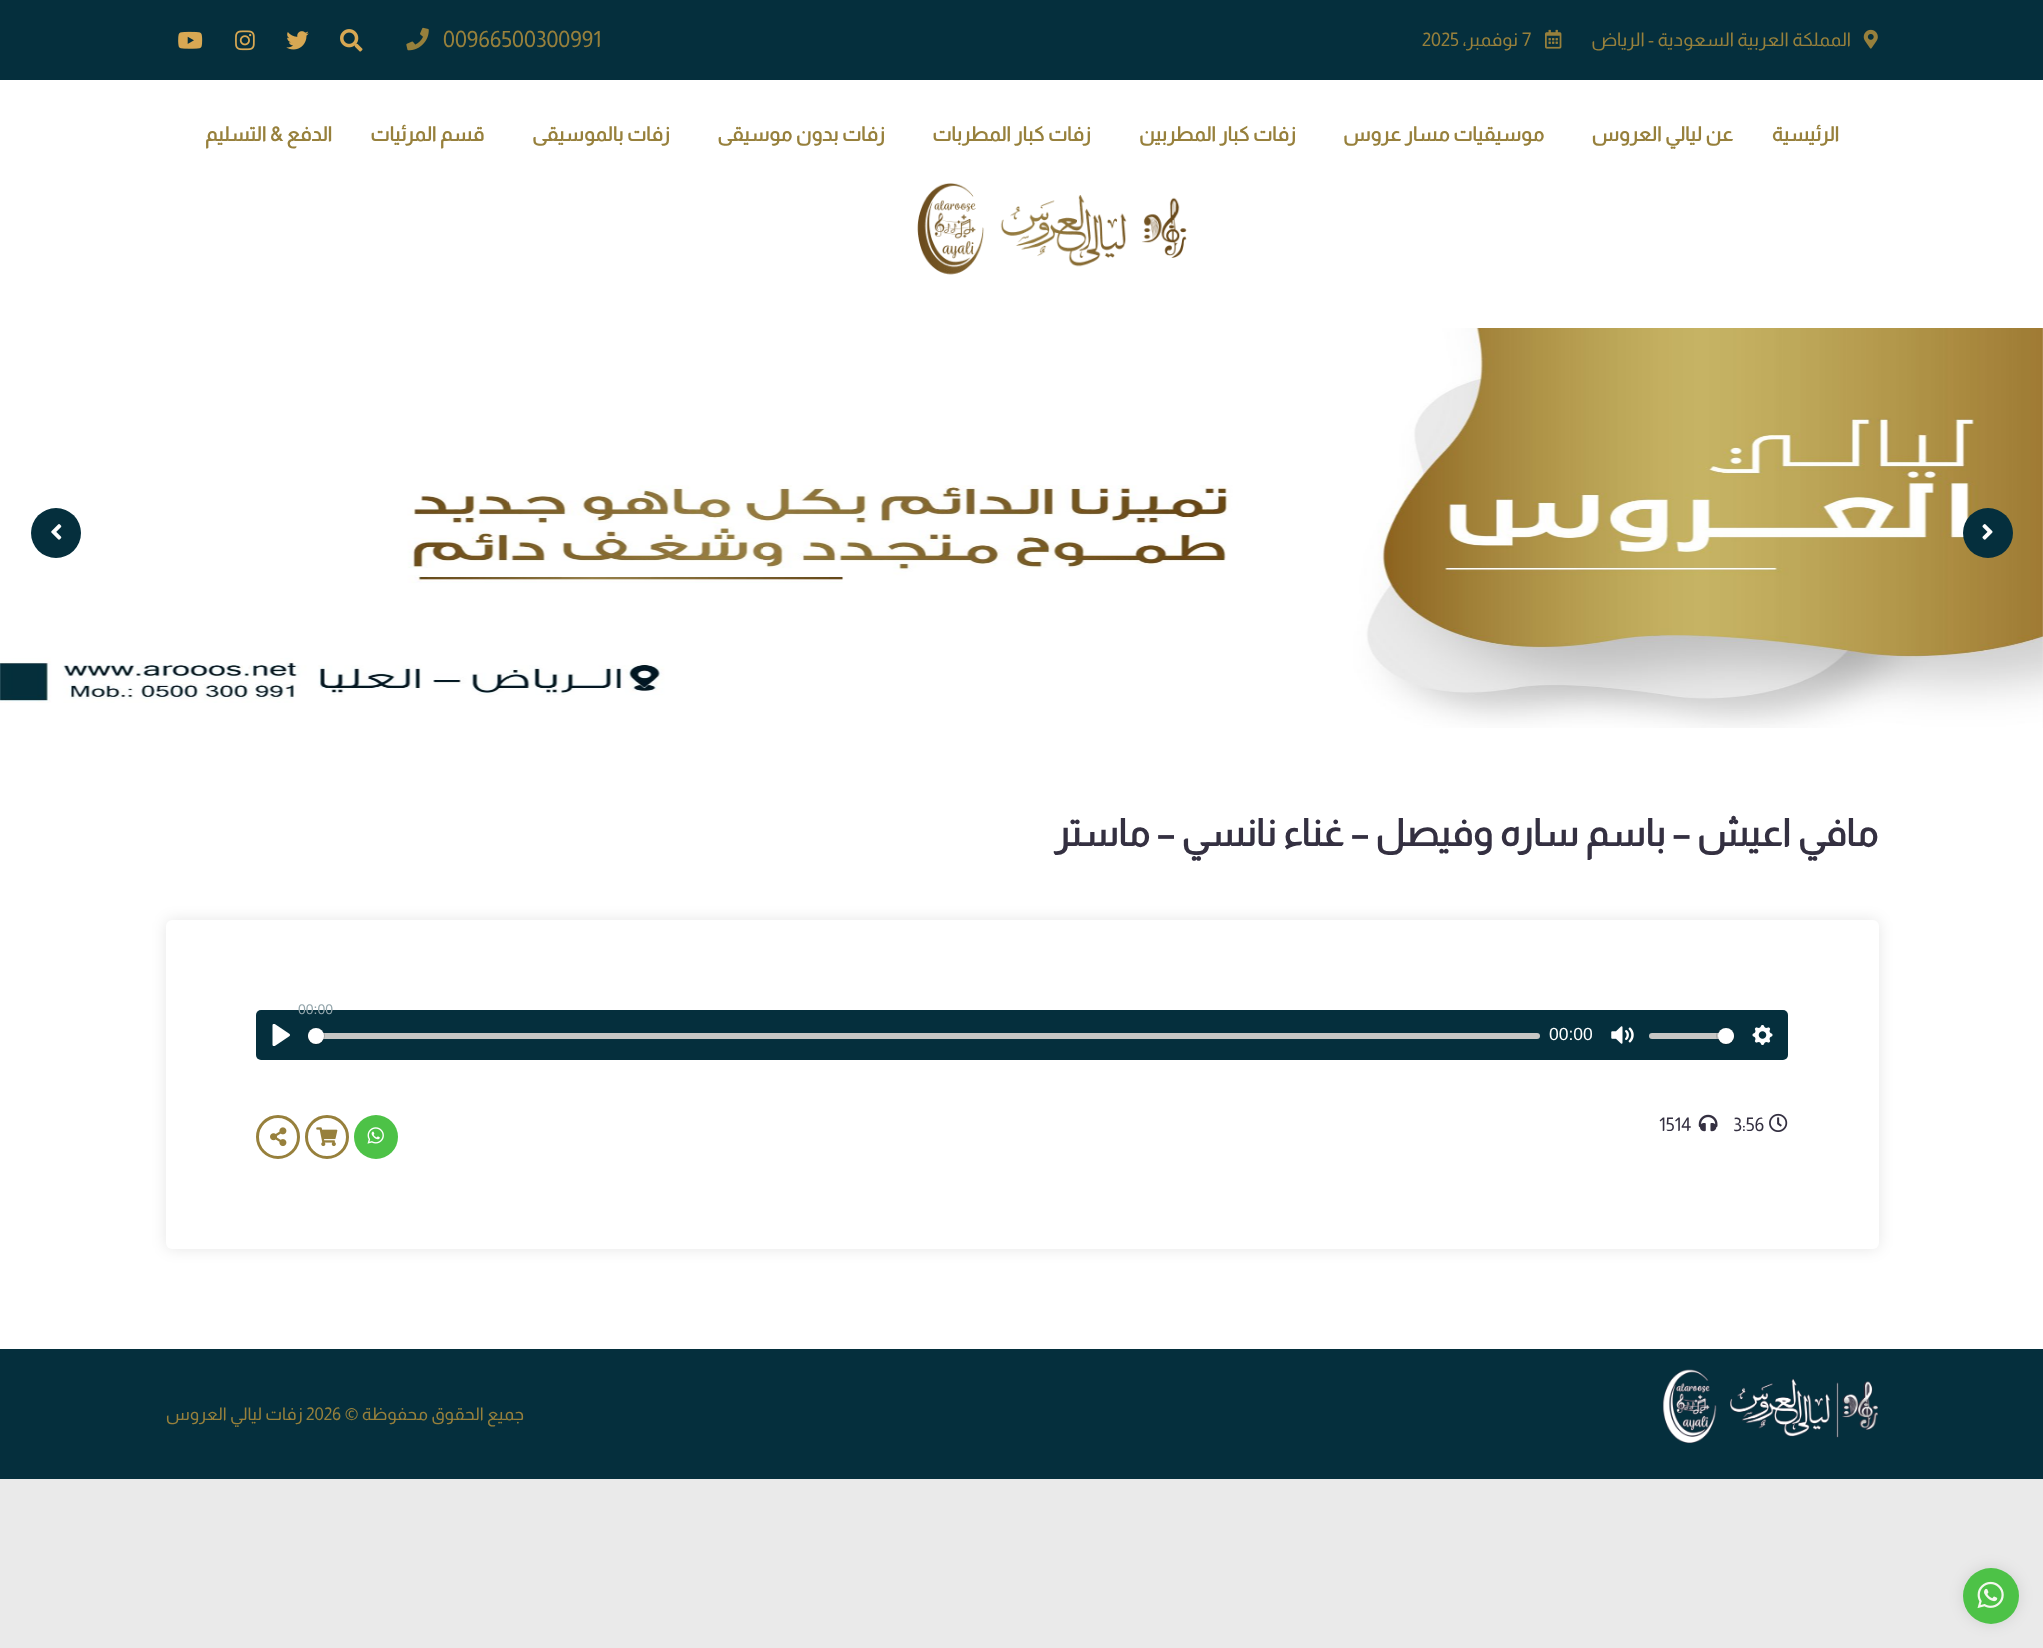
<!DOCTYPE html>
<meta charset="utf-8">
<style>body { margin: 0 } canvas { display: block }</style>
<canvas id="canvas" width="2043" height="1648"></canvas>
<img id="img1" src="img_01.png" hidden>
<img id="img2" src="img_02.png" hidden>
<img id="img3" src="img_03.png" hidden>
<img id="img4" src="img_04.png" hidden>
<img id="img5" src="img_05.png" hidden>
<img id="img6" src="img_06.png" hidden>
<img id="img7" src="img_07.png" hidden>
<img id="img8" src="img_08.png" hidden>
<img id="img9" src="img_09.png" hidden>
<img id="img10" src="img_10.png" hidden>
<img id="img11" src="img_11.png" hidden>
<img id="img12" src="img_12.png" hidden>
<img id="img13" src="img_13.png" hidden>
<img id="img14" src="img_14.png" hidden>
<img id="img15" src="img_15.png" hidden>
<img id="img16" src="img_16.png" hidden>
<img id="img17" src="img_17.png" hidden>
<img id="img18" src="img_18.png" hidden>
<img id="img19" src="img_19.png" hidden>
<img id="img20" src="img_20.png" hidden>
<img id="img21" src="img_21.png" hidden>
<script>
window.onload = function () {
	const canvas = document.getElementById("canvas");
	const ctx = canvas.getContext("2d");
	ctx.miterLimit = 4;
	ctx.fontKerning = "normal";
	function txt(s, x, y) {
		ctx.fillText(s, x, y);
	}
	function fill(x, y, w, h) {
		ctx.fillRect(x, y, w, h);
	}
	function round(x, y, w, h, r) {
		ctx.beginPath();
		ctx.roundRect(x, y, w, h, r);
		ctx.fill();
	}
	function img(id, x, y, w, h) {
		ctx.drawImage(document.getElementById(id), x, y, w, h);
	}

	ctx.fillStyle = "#EAEAEA";
	fill(0, 0, 2043, 1648);
	ctx.fillStyle = "#052F3D";
	fill(0, 0, 2043, 80);
	img("img1", 1863, 29, 15, 20);
	img("img2", 1545, 29, 17, 20);
	img("img3", 406, 27, 23, 24);
	img("img4", 340, 29, 23, 23);
	img("img5", 286, 31, 23, 19);
	img("img6", 235, 30, 20, 21);
	img("img7", 178, 31, 25, 18);
	ctx.fillStyle = "#FFFFFF";
	fill(0, 80, 2043, 248);
	img("img8", 917, 183, 270, 92);
	img("img9", 0, 328, 2043, 400);
	ctx.fillStyle = "#052F3D";
	ctx.beginPath();
	ctx.arc(1988, 533, 25, 0, Math.PI * 2);
	ctx.fill();
	img("img10", 1982, 524, 11, 16);
	ctx.beginPath();
	ctx.arc(56, 533, 25, 0, Math.PI * 2);
	ctx.fill();
	img("img11", 51, 524, 11, 16);
	ctx.fillStyle = "#FFFFFF";
	fill(0, 728, 2043, 621);
	ctx.fillStyle = "rgba(0, 0, 0, 0.1)";
	ctx.filter = "blur(7.5px)";
	ctx.beginPath();
	ctx.roundRect(166, 920, 1713, 329, 6);
	ctx.fill();
	ctx.filter = "none";
	ctx.fillStyle = "#FFFFFF";
	round(166, 920, 1713, 329, 6);
	ctx.fillStyle = "#052F3D";
	round(256, 1010, 1532, 50, 5);
	ctx.fillStyle = "#C7C7C5";
	round(308, 1033, 1232, 6, 3);
	ctx.beginPath();
	ctx.arc(315.5, 1035.5, 9, 0, Math.PI * 2);
	ctx.strokeStyle = "rgba(35, 41, 47, 0.2)";
	ctx.stroke();
	ctx.fillStyle = "rgba(0, 0, 0, 0.15)";
	ctx.filter = "blur(0.5px)";
	ctx.beginPath();
	ctx.roundRect(308, 1029, 16, 16, 8);
	ctx.fill();
	ctx.filter = "none";
	ctx.fillStyle = "#FFFFFF";
	ctx.beginPath();
	ctx.arc(316, 1036, 8, 0, Math.PI * 2);
	ctx.fill();
	img("img12", 1752, 1025, 21, 20);
	ctx.fillStyle = "#C7C7C5";
	round(1649, 1033, 85, 6, 3);
	ctx.beginPath();
	ctx.arc(1725.5, 1035.5, 9, 0, Math.PI * 2);
	ctx.stroke();
	ctx.fillStyle = "rgba(0, 0, 0, 0.15)";
	ctx.filter = "blur(0.5px)";
	ctx.beginPath();
	ctx.roundRect(1718, 1029, 16, 16, 8);
	ctx.fill();
	ctx.filter = "none";
	ctx.fillStyle = "#FFFFFF";
	ctx.beginPath();
	ctx.arc(1726, 1036, 8, 0, Math.PI * 2);
	ctx.fill();
	img("img13", 1611, 1026, 23, 18);
	img("img14", 272, 1024, 18, 22);
	img("img15", 1769, 1113, 19, 19);
	img("img16", 1698, 1114, 20, 18);
	ctx.fillStyle = "#4DC247";
	ctx.beginPath();
	ctx.arc(376, 1137, 22, 0, Math.PI * 2);
	ctx.fill();
	img("img17", 367, 1127, 17, 17);
	ctx.beginPath();
	ctx.arc(327, 1137, 20.5, 0, Math.PI * 2);
	ctx.strokeStyle = "#97803C";
	ctx.lineWidth = 3;
	ctx.stroke();
	img("img18", 316, 1127, 22, 20);
	ctx.beginPath();
	ctx.arc(278, 1137, 20.5, 0, Math.PI * 2);
	ctx.stroke();
	img("img19", 270, 1127, 17, 20);
	ctx.fillStyle = "#052F3D";
	fill(0, 1349, 2043, 130);
	img("img20", 1662, 1369, 217, 75);
	ctx.fillStyle = "rgba(0, 0, 0, 0.1)";
	ctx.filter = "blur(7.5px)";
	ctx.beginPath();
	ctx.roundRect(1963, 1568, 56, 56, 28);
	ctx.fill();
	ctx.filter = "none";
	ctx.fillStyle = "#4DC247";
	ctx.beginPath();
	ctx.arc(1991, 1596, 28, 0, Math.PI * 2);
	ctx.fill();
	img("img21", 1977, 1581, 27, 28);
	ctx.direction = "rtl";
	ctx.font = "18.75px Almarai";
	ctx.fillStyle = "#97803C";
	txt("المملكة العربية السعودية - الرياض", 1851, 46);
	ctx.direction = "ltr";
	txt("7", 1522, 46);
	ctx.direction = "rtl";
	txt("نوفمبر،", 1518, 46);
	ctx.direction = "ltr";
	txt("2025", 1422, 46);
	ctx.font = "22.5px Almarai";
	txt("00966500300991", 443, 47);
	ctx.direction = "rtl";
	ctx.font = "bold 20px Almarai";
	txt("الرئيسية", 1839, 141);
	txt("عن ليالي العروس", 1733, 141);
	txt("موسيقيات مسار عروس", 1544, 141);
	txt("زفات كبار المطربين", 1296, 141);
	txt("زفات كبار المطربات", 1091, 141);
	txt("زفات بدون موسيقى", 885, 141);
	txt("زفات بالموسيقى", 670, 141);
	txt("قسم المرئيات", 484, 141);
	txt("الدفع & التسليم", 332, 141);
	ctx.font = "bold 37.5px Almarai";
	ctx.fillStyle = "#343041";
	txt("مافي اعيش – باسم ساره وفيصل – غناء نانسي – ماستر", 1878, 846);
	ctx.direction = "ltr";
	ctx.font = "14px Liberation Sans";
	ctx.fillStyle = "#93A5AB";
	txt("00:00", 298, 1014);
	ctx.font = "17.5px Liberation Sans";
	ctx.fillStyle = "#FFFFFF";
	txt("00:00", 1549, 1040);
	ctx.font = "18.75px Almarai";
	ctx.fillStyle = "#343041";
	txt("3:56", 1733, 1131);
	txt("1514", 1659, 1131);
	ctx.direction = "rtl";
	ctx.font = "17.5px Almarai";
	ctx.fillStyle = "#97803C";
	txt("جميع الحقوق محفوظة ©", 524, 1420);
	ctx.direction = "ltr";
	txt("2026", 306, 1420);
	ctx.direction = "rtl";
	txt("زفات ليالي العروس", 303, 1420);
};
</script>
